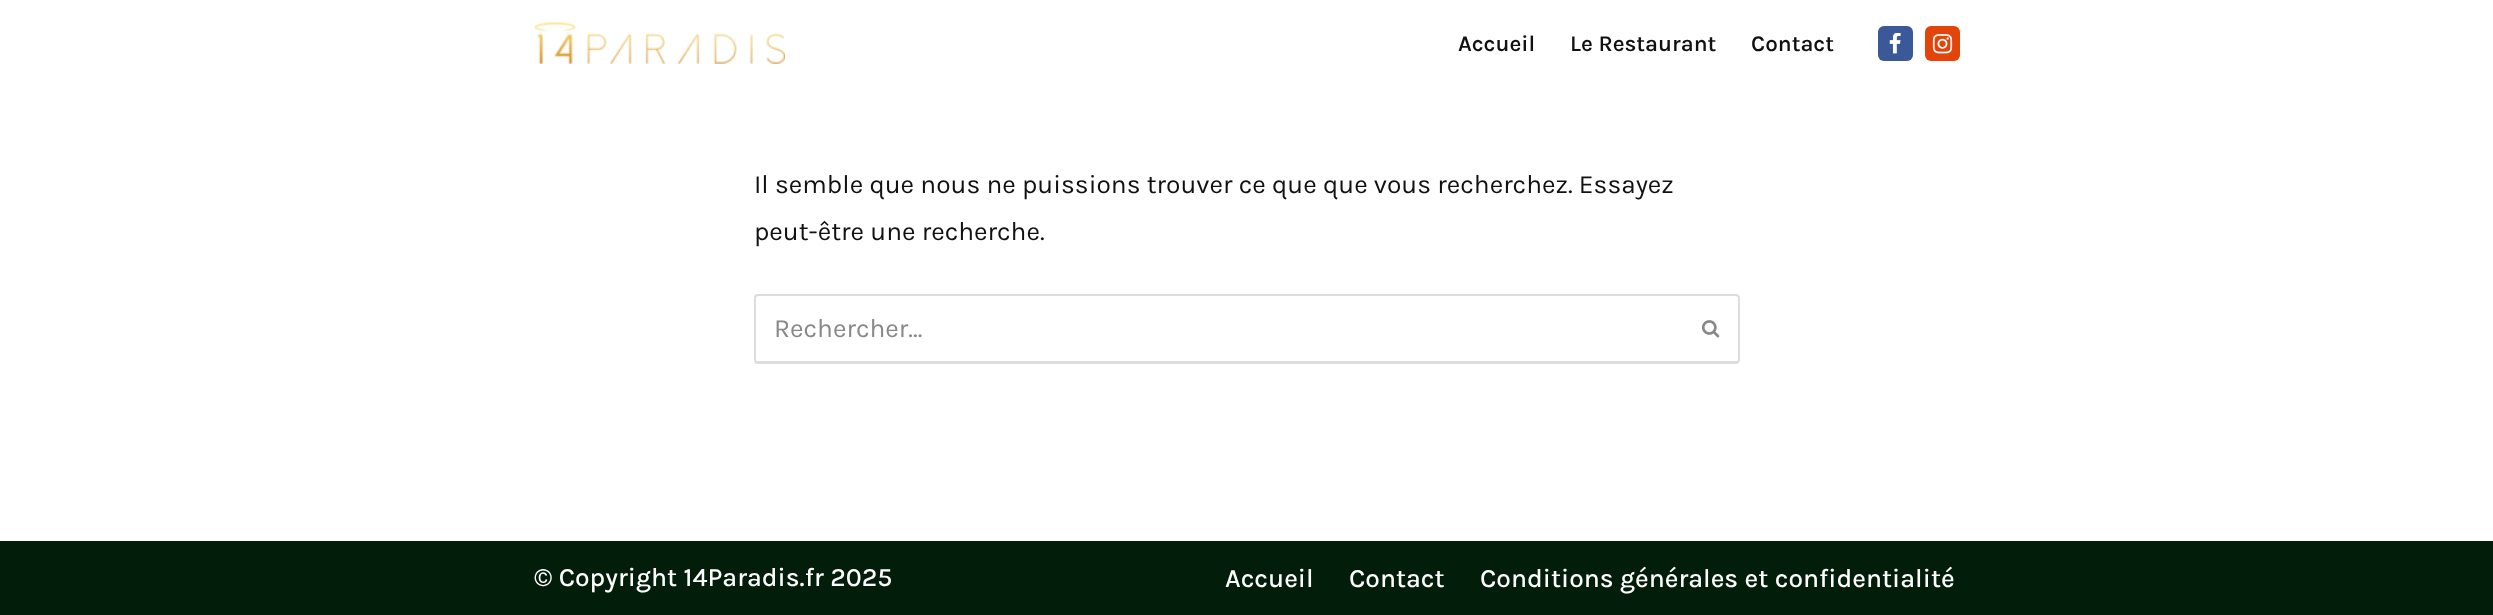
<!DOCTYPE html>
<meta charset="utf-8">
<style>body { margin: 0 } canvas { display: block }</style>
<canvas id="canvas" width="2493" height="615"></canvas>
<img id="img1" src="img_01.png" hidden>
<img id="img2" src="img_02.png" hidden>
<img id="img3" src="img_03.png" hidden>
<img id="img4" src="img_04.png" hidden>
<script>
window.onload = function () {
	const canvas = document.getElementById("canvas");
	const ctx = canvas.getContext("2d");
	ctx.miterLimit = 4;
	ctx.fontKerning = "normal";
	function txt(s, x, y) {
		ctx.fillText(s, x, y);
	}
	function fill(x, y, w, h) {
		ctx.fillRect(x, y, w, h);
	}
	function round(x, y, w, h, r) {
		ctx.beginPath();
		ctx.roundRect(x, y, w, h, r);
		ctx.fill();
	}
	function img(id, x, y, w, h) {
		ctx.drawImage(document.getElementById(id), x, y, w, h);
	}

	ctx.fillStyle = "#FFFFFF";
	fill(0, 0, 2493, 615);
	img("img1", 534, 22, 251, 42);
	ctx.fillStyle = "#3B5998";
	round(1878, 26, 35, 35, 6);
	img("img2", 1889, 33, 12, 21);
	ctx.fillStyle = "#E3440A";
	round(1925, 26, 35, 35, 6);
	img("img3", 1932, 34, 21, 20);
	ctx.fillStyle = "#DDDDDD";
	ctx.beginPath();
	ctx.moveTo(758, 294);
	ctx.lineTo(1684, 294);
	ctx.lineTo(1684, 364);
	ctx.lineTo(758, 364);
	ctx.bezierCurveTo(755, 364, 754, 362, 754, 360);
	ctx.lineTo(754, 298);
	ctx.bezierCurveTo(754, 295, 755, 294, 758, 294);
	ctx.closePath();
	ctx.moveTo(758, 296);
	ctx.lineTo(1684, 296);
	ctx.lineTo(1684, 361);
	ctx.lineTo(758, 361);
	ctx.bezierCurveTo(757, 361, 756, 361, 756, 360);
	ctx.lineTo(756, 298);
	ctx.bezierCurveTo(756, 297, 757, 296, 758, 296);
	ctx.closePath();
	ctx.fill("evenodd");
	ctx.beginPath();
	ctx.moveTo(1684, 294);
	ctx.lineTo(1736, 294);
	ctx.bezierCurveTo(1738, 294, 1740, 295, 1740, 298);
	ctx.lineTo(1740, 360);
	ctx.bezierCurveTo(1740, 362, 1738, 364, 1736, 364);
	ctx.lineTo(1684, 364);
	ctx.closePath();
	ctx.moveTo(1684, 296);
	ctx.lineTo(1736, 296);
	ctx.bezierCurveTo(1737, 296, 1738, 297, 1738, 298);
	ctx.lineTo(1738, 360);
	ctx.bezierCurveTo(1738, 361, 1737, 361, 1736, 361);
	ctx.lineTo(1684, 361);
	ctx.closePath();
	ctx.fill("evenodd");
	img("img4", 1701, 320, 19, 18);
	ctx.fillStyle = "#021D09";
	fill(0, 541, 2493, 74);
	ctx.font = "600 22.5px Karla";
	ctx.fillStyle = "#111111";
	txt("Accueil", 1458, 51);
	txt("Le Restaurant", 1570, 51);
	txt("Contact", 1751, 51);
	ctx.font = "26.25px Karla";
	txt("Il semble que nous ne puissions trouver ce que que vous recherchez. Essayez", 754, 193);
	txt("peut-être une recherche.", 754, 240);
	ctx.fillStyle = "#888888";
	txt("Rechercher...", 774, 337);
	ctx.font = "500 26.25px Karla";
	ctx.fillStyle = "#FFFFFF";
	txt("© Copyright 14Paradis.fr 2025", 534, 586);
	txt("Accueil", 1225, 587);
	txt("Contact", 1349, 587);
	txt("Conditions générales et confidentialité", 1480, 587);
};
</script>
